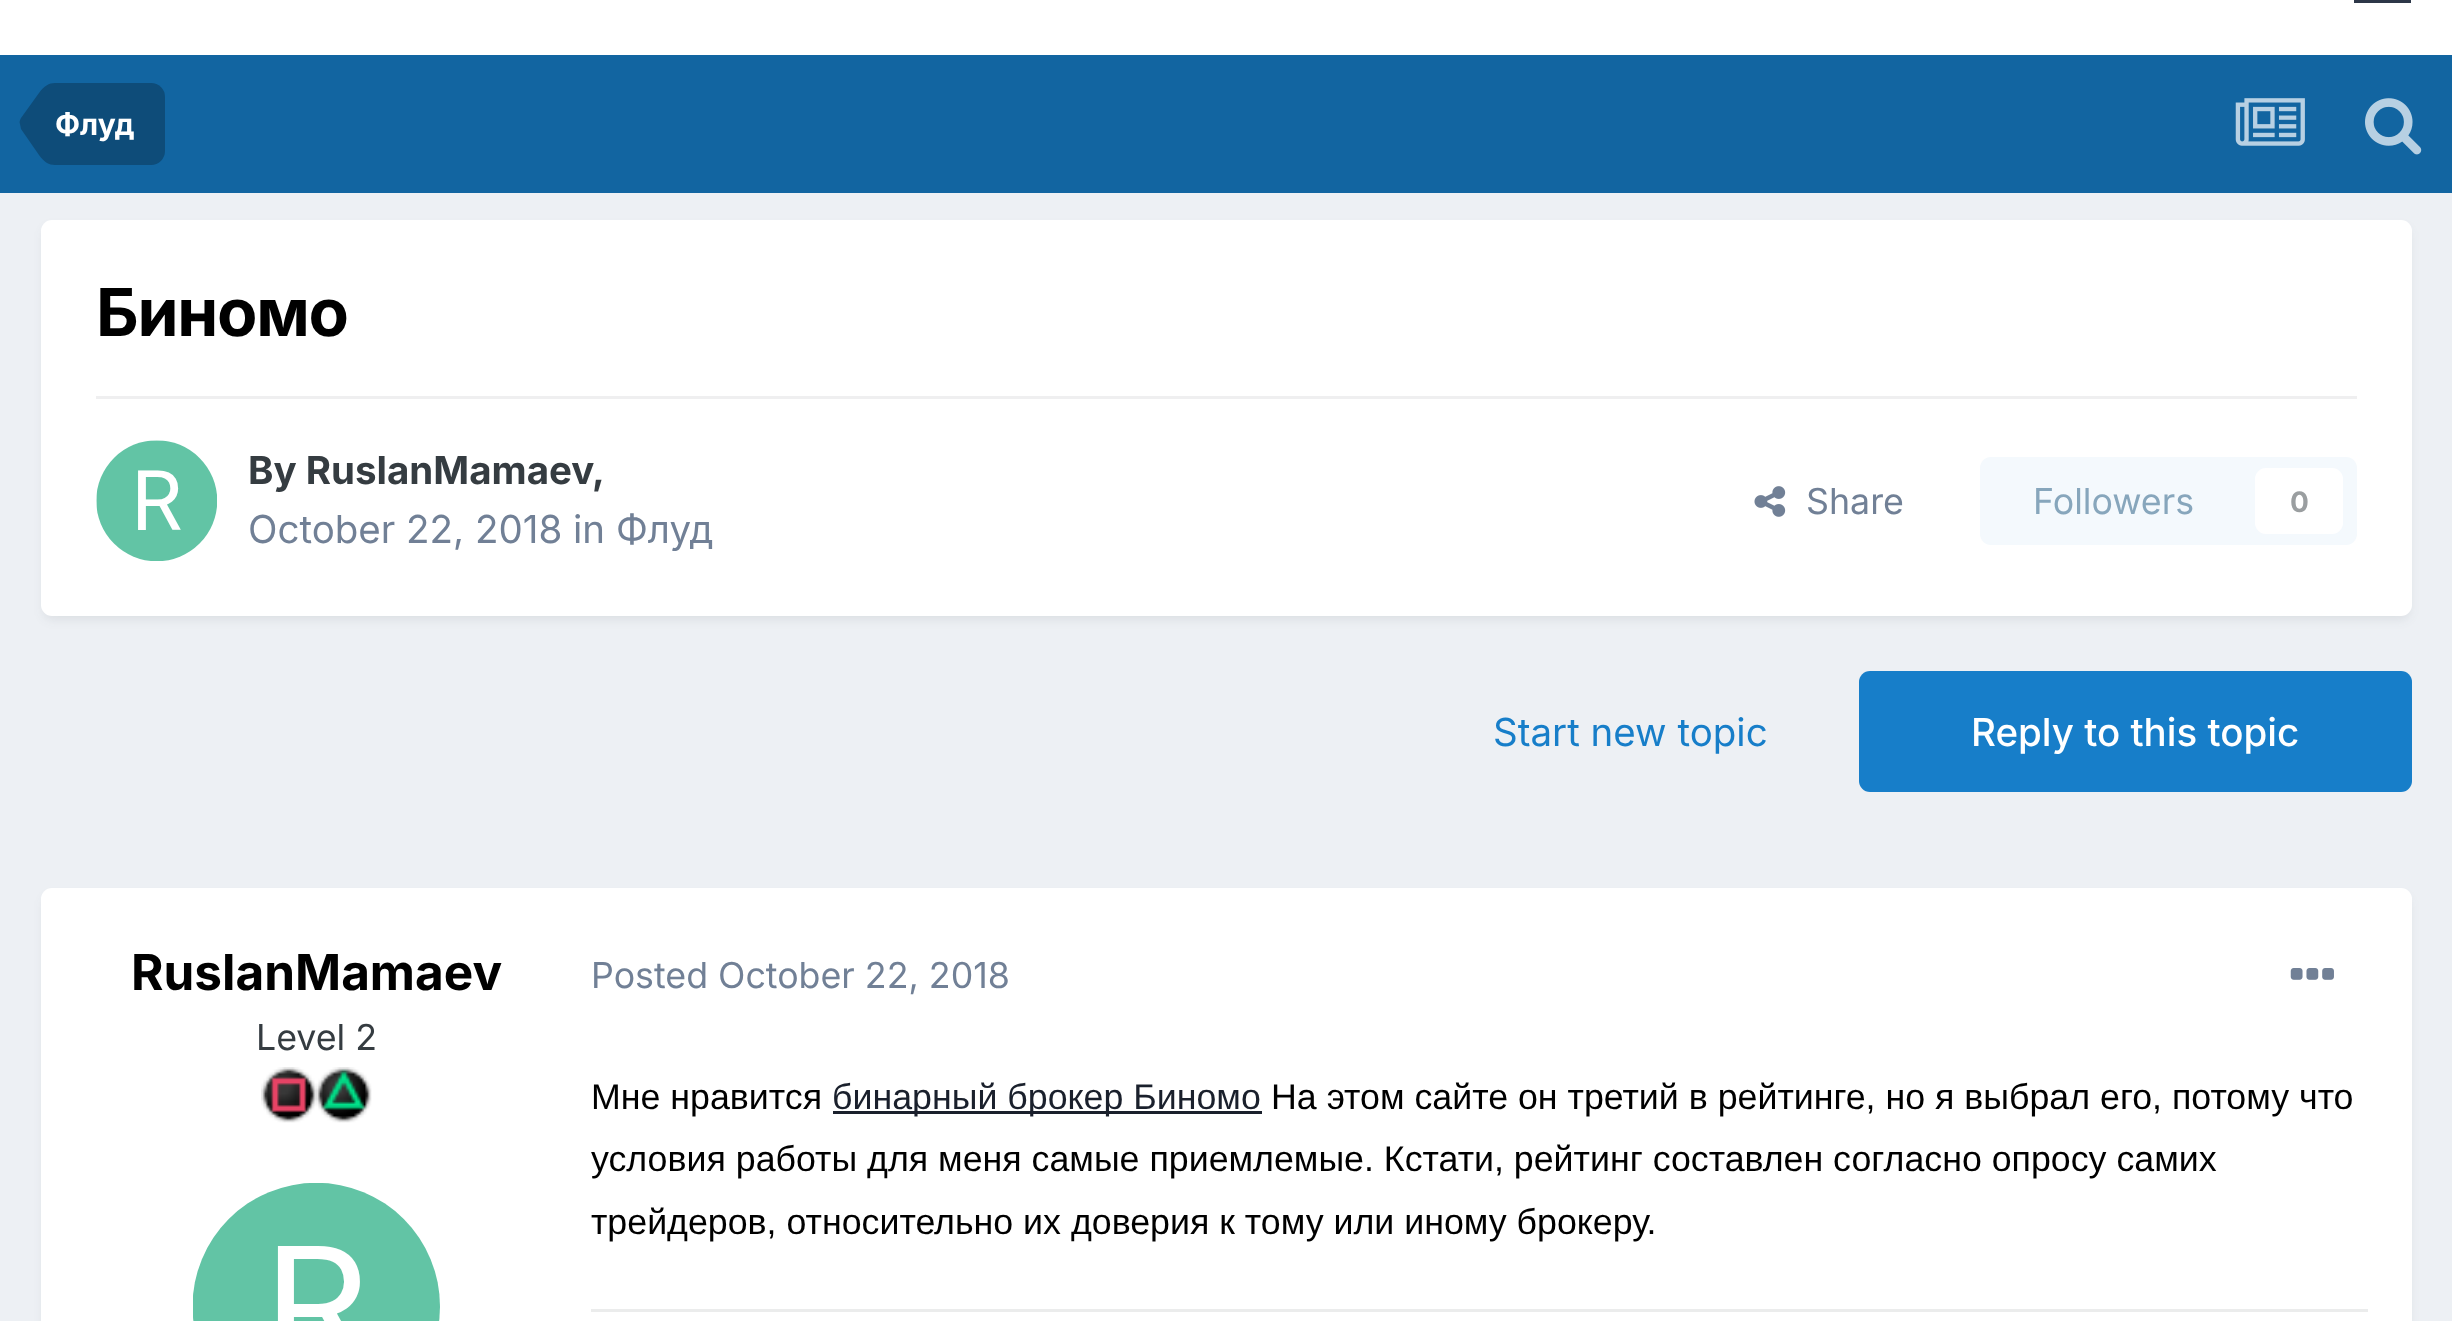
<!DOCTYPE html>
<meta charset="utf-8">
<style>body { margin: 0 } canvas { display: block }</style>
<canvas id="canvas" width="2452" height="1321"></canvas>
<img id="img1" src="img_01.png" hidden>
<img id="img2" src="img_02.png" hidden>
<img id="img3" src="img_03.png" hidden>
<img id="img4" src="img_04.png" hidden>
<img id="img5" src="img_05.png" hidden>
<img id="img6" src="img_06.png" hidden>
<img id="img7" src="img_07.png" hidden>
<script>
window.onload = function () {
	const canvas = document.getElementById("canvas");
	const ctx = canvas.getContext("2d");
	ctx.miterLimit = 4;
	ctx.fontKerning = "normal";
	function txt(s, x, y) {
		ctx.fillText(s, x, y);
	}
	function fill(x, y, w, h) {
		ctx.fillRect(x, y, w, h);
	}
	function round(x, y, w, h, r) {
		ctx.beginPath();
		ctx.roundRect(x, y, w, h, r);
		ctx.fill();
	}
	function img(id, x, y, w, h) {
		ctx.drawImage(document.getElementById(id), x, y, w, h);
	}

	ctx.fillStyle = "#EDF0F4";
	fill(0, 0, 2452, 1321);
	ctx.fillStyle = "#FFFFFF";
	fill(0, 0, 2452, 55);
	ctx.fillStyle = "#2D3748";
	fill(2354, 0, 57, 3);
	ctx.fillStyle = "#1265A1";
	fill(0, 55, 2452, 138);
	ctx.fillStyle = "#0E4C79";
	ctx.beginPath();
	ctx.roundRect(55, 83, 110, 82, [0, 14, 14, 0]);
	ctx.fill();
	ctx.beginPath();
	ctx.moveTo(21, 129);
	ctx.lineTo(20, 124);
	ctx.lineTo(55, 124);
	ctx.lineTo(55, 165);
	ctx.bezierCurveTo(49, 165, 44, 162, 39, 155);
	ctx.closePath();
	ctx.fill();
	ctx.beginPath();
	ctx.moveTo(55, 83);
	ctx.lineTo(55, 124);
	ctx.lineTo(20, 124);
	ctx.bezierCurveTo(19, 122, 20, 120, 21, 118);
	ctx.lineTo(39, 93);
	ctx.bezierCurveTo(44, 86, 49, 83, 55, 83);
	ctx.closePath();
	ctx.fill();
	img("img1", 2235, 98, 70, 48);
	img("img2", 2365, 98, 57, 57);
	ctx.fillStyle = "rgba(45, 55, 72, 0.1)";
	ctx.filter = "blur(5.5px)";
	ctx.beginPath();
	ctx.roundRect(44, 228, 2365, 391, 8);
	ctx.fill();
	ctx.filter = "none";
	ctx.fillStyle = "#FFFFFF";
	round(41, 220, 2371, 396, 11);
	ctx.fillStyle = "#EFEFF0";
	fill(96, 396, 2261, 3);
	img("img3", 96, 440, 121, 121);
	img("img4", 1754, 486, 32, 31);
	ctx.fillStyle = "#F4F9FD";
	round(1980, 457, 377, 88, 11);
	ctx.fillStyle = "#FFFFFF";
	round(2255, 468, 88, 66, 11);
	ctx.fillStyle = "#177EC9";
	round(1859, 671, 553, 121, 11);
	ctx.fillStyle = "rgba(45, 55, 72, 0.1)";
	ctx.filter = "blur(5.5px)";
	ctx.beginPath();
	ctx.roundRect(44, 897, 2365, 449, 8);
	ctx.fill();
	ctx.filter = "none";
	ctx.fillStyle = "#FFFFFF";
	round(41, 888, 2371, 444, 11);
	img("img5", 261, 1067, 111, 56);
	img("img6", 193, 1183, 247, 138);
	img("img7", 2290, 968, 44, 12);
	ctx.fillStyle = "#1A202C";
	fill(833, 1111, 429, 3);
	ctx.fillStyle = "#EBECEC";
	fill(591, 1309, 1777, 3);
	ctx.font = "bold 30px Inter";
	ctx.fillStyle = "#FFFFFF";
	txt("Флуд", 55, 135);
	ctx.letterSpacing = "-1.25px";
	ctx.font = "bold 66px Inter";
	ctx.fillStyle = "#000000";
	txt("Биномо", 96, 336);
	ctx.letterSpacing = "0px";
	ctx.font = "bold 38.5px Inter";
	ctx.fillStyle = "#353C41";
	txt("By RuslanMamaev", 248, 484);
	txt(",", 592, 484);
	ctx.font = "38.5px Inter";
	ctx.fillStyle = "#718096";
	txt("October 22, 2018 in Флуд", 248, 543);
	ctx.font = "35.75px Inter";
	txt("Share", 1806, 514);
	ctx.fillStyle = "#87A6BC";
	txt("Followers", 2033, 514);
	ctx.font = "bold 28px Inter";
	ctx.fillStyle = "#9A9EA0";
	txt("0", 2290, 512);
	ctx.font = "38.5px Inter";
	ctx.fillStyle = "#177EC9";
	txt("Start new topic", 1493, 746);
	ctx.font = "500 38.5px Inter";
	ctx.fillStyle = "#FFFFFF";
	txt("Reply to this topic", 1971, 746);
	ctx.font = "bold 49.5px Inter";
	ctx.fillStyle = "#000000";
	txt("RuslanMamaev", 131, 990);
	ctx.font = "35.75px Inter";
	ctx.fillStyle = "#353C41";
	txt("Level 2", 256, 1050);
	ctx.fillStyle = "#718096";
	txt("Posted October 22, 2018", 591, 988);
	ctx.font = "35.75px Liberation Sans";
	ctx.fillStyle = "#000000";
	txt("Мне нравится", 591, 1109);
	ctx.fillStyle = "#1A202C";
	txt("бинарный брокер Биномо", 832, 1109);
	ctx.fillStyle = "#000000";
	txt("На этом сайте он третий в рейтинге, но я выбрал его, потому что", 1271, 1109);
	txt("условия работы для меня самые приемлемые. Кстати, рейтинг составлен согласно опросу самих", 591, 1171);
	txt("трейдеров, относительно их доверия к тому или иному брокеру.", 591, 1234);
};
</script>
